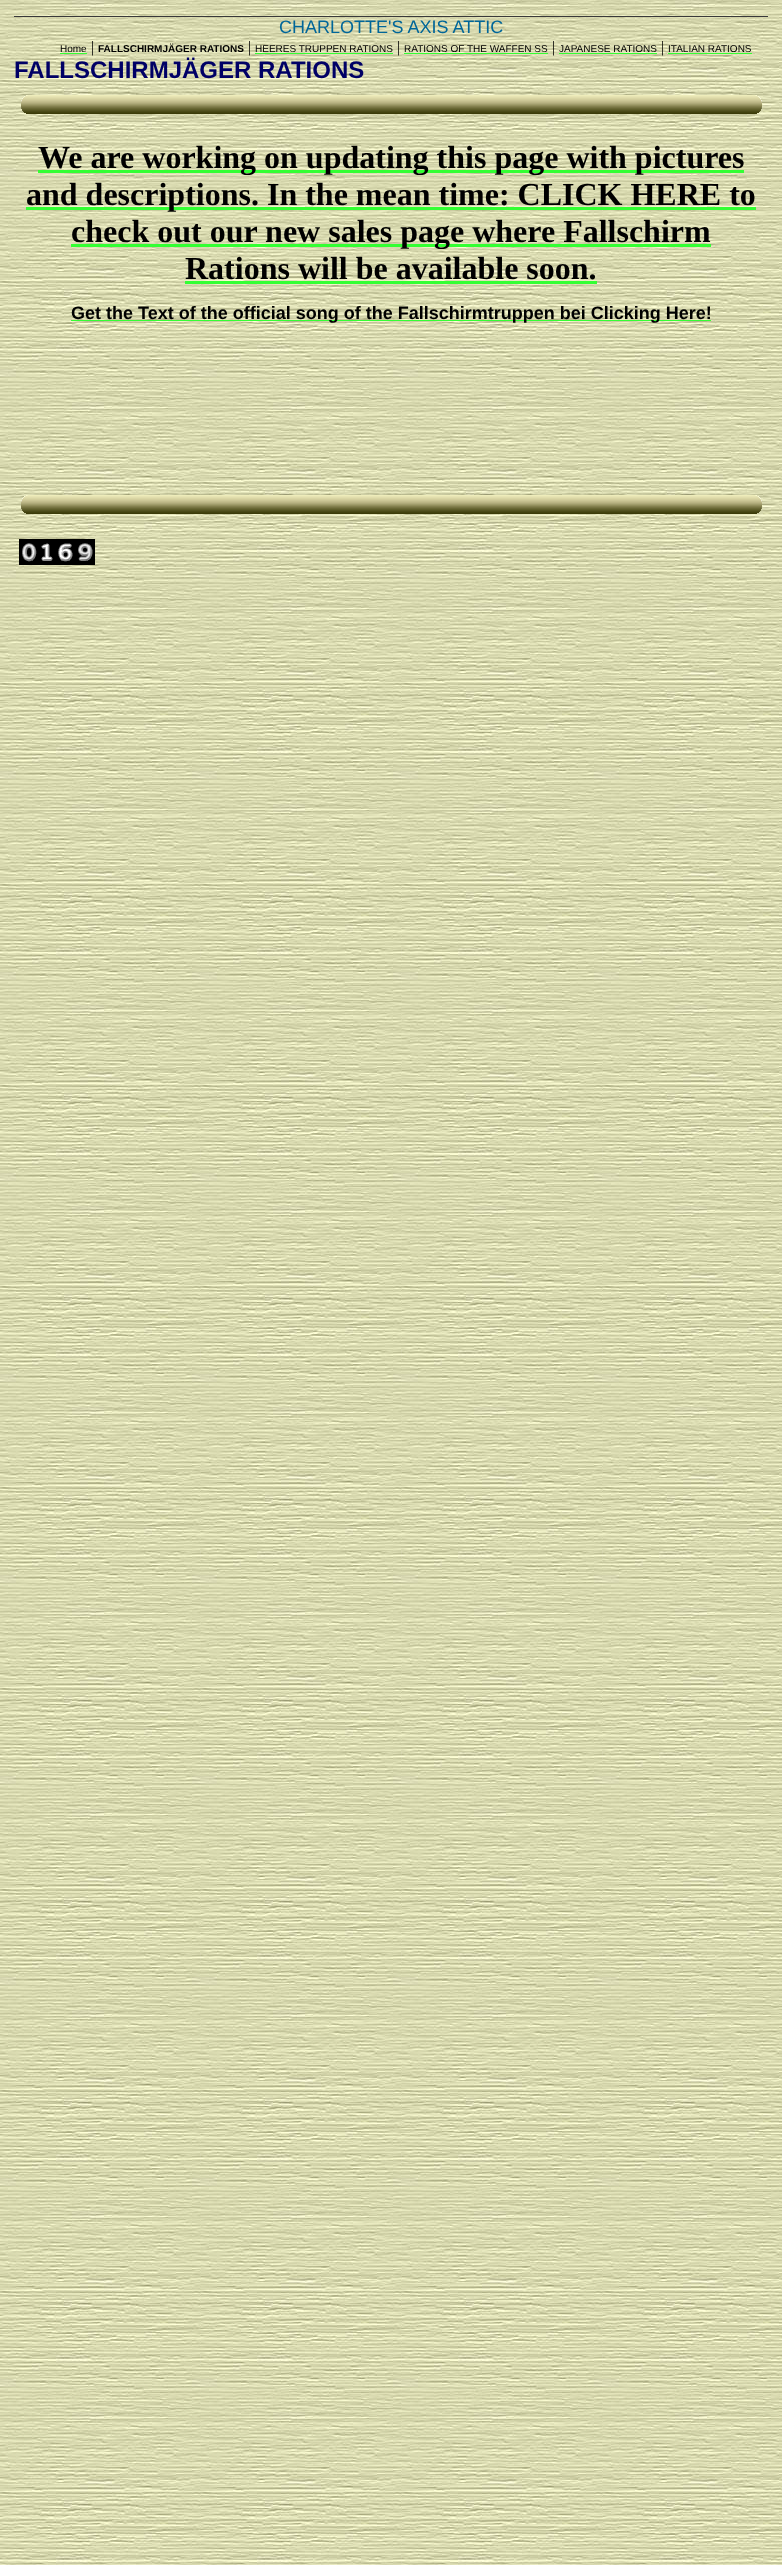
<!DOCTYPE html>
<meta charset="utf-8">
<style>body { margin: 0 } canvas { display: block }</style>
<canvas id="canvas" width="782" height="2565"></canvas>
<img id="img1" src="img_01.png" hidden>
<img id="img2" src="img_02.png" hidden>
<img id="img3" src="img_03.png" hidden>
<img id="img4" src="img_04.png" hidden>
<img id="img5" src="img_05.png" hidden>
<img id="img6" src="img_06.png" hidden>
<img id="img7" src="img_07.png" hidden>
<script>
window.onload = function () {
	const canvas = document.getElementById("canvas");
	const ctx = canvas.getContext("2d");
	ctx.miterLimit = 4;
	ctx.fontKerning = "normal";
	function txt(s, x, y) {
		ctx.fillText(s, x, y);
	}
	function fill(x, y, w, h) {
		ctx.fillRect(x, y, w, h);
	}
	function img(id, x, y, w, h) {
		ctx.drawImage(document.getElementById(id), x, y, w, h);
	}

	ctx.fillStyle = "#FFFFFF";
	fill(0, 0, 782, 2565);
	img("img1", 0, 0, 782, 2565);
	ctx.fillStyle = "#393939";
	fill(14, 16, 754, 1);
	ctx.fillStyle = "#33FF33";
	fill(60, 53, 27, 1);
	fill(255, 53, 138, 1);
	fill(404, 53, 144, 1);
	fill(559, 53, 98, 1);
	fill(668, 53, 84, 1);
	img("img2", 21, 95, 741, 19);
	fill(38, 170, 706, 3);
	fill(26, 207, 730, 3);
	fill(71, 244, 640, 3);
	fill(185, 281, 412, 3);
	fill(71, 320, 640, 1);
	img("img3", 21, 495, 741, 19);
	img("img4", 19, 539, 20, 26);
	img("img5", 39, 539, 16, 26);
	img("img6", 55, 539, 20, 26);
	img("img7", 75, 539, 20, 26);
	ctx.font = "18px Liberation Sans";
	ctx.fillStyle = "#006699";
	txt("CHARLOTTE'S AXIS ATTIC", 279, 33);
	ctx.font = "10px Liberation Sans";
	ctx.fillStyle = "#000000";
	txt("Home", 60, 52);
	ctx.font = "16px Liberation Serif";
	txt("|", 91, 52);
	ctx.font = "bold 10px Liberation Sans";
	txt("FALLSCHIRMJÄGER RATIONS", 98, 52);
	ctx.font = "16px Liberation Serif";
	txt("|", 248, 52);
	ctx.font = "10px Liberation Sans";
	txt("HEERES TRUPPEN RATIONS", 255, 52);
	ctx.font = "16px Liberation Serif";
	txt("|", 397, 52);
	ctx.font = "10px Liberation Sans";
	txt("RATIONS OF THE WAFFEN SS", 404, 52);
	ctx.font = "16px Liberation Serif";
	txt("|", 552, 52);
	ctx.font = "10px Liberation Sans";
	txt("JAPANESE RATIONS", 559, 52);
	ctx.font = "16px Liberation Serif";
	txt("|", 661, 52);
	ctx.font = "10px Liberation Sans";
	txt("ITALIAN RATIONS", 668, 52);
	ctx.font = "bold 24px Liberation Sans";
	ctx.fillStyle = "#000066";
	txt("FALLSCHIRMJÄGER RATIONS", 14, 78);
	ctx.font = "bold 32px Liberation Serif";
	ctx.fillStyle = "#000000";
	txt("We are working on updating this page with pictures", 38, 168);
	txt("and descriptions. In the mean time: CLICK HERE to", 26, 205);
	txt("check out our new sales page where Fallschirm", 71, 242);
	txt("Rations will be available soon.", 185, 279);
	ctx.font = "bold 18px Liberation Sans";
	txt("Get the Text of the official song of the Fallschirmtruppen bei Clicking Here!", 71, 319);
};
</script>
